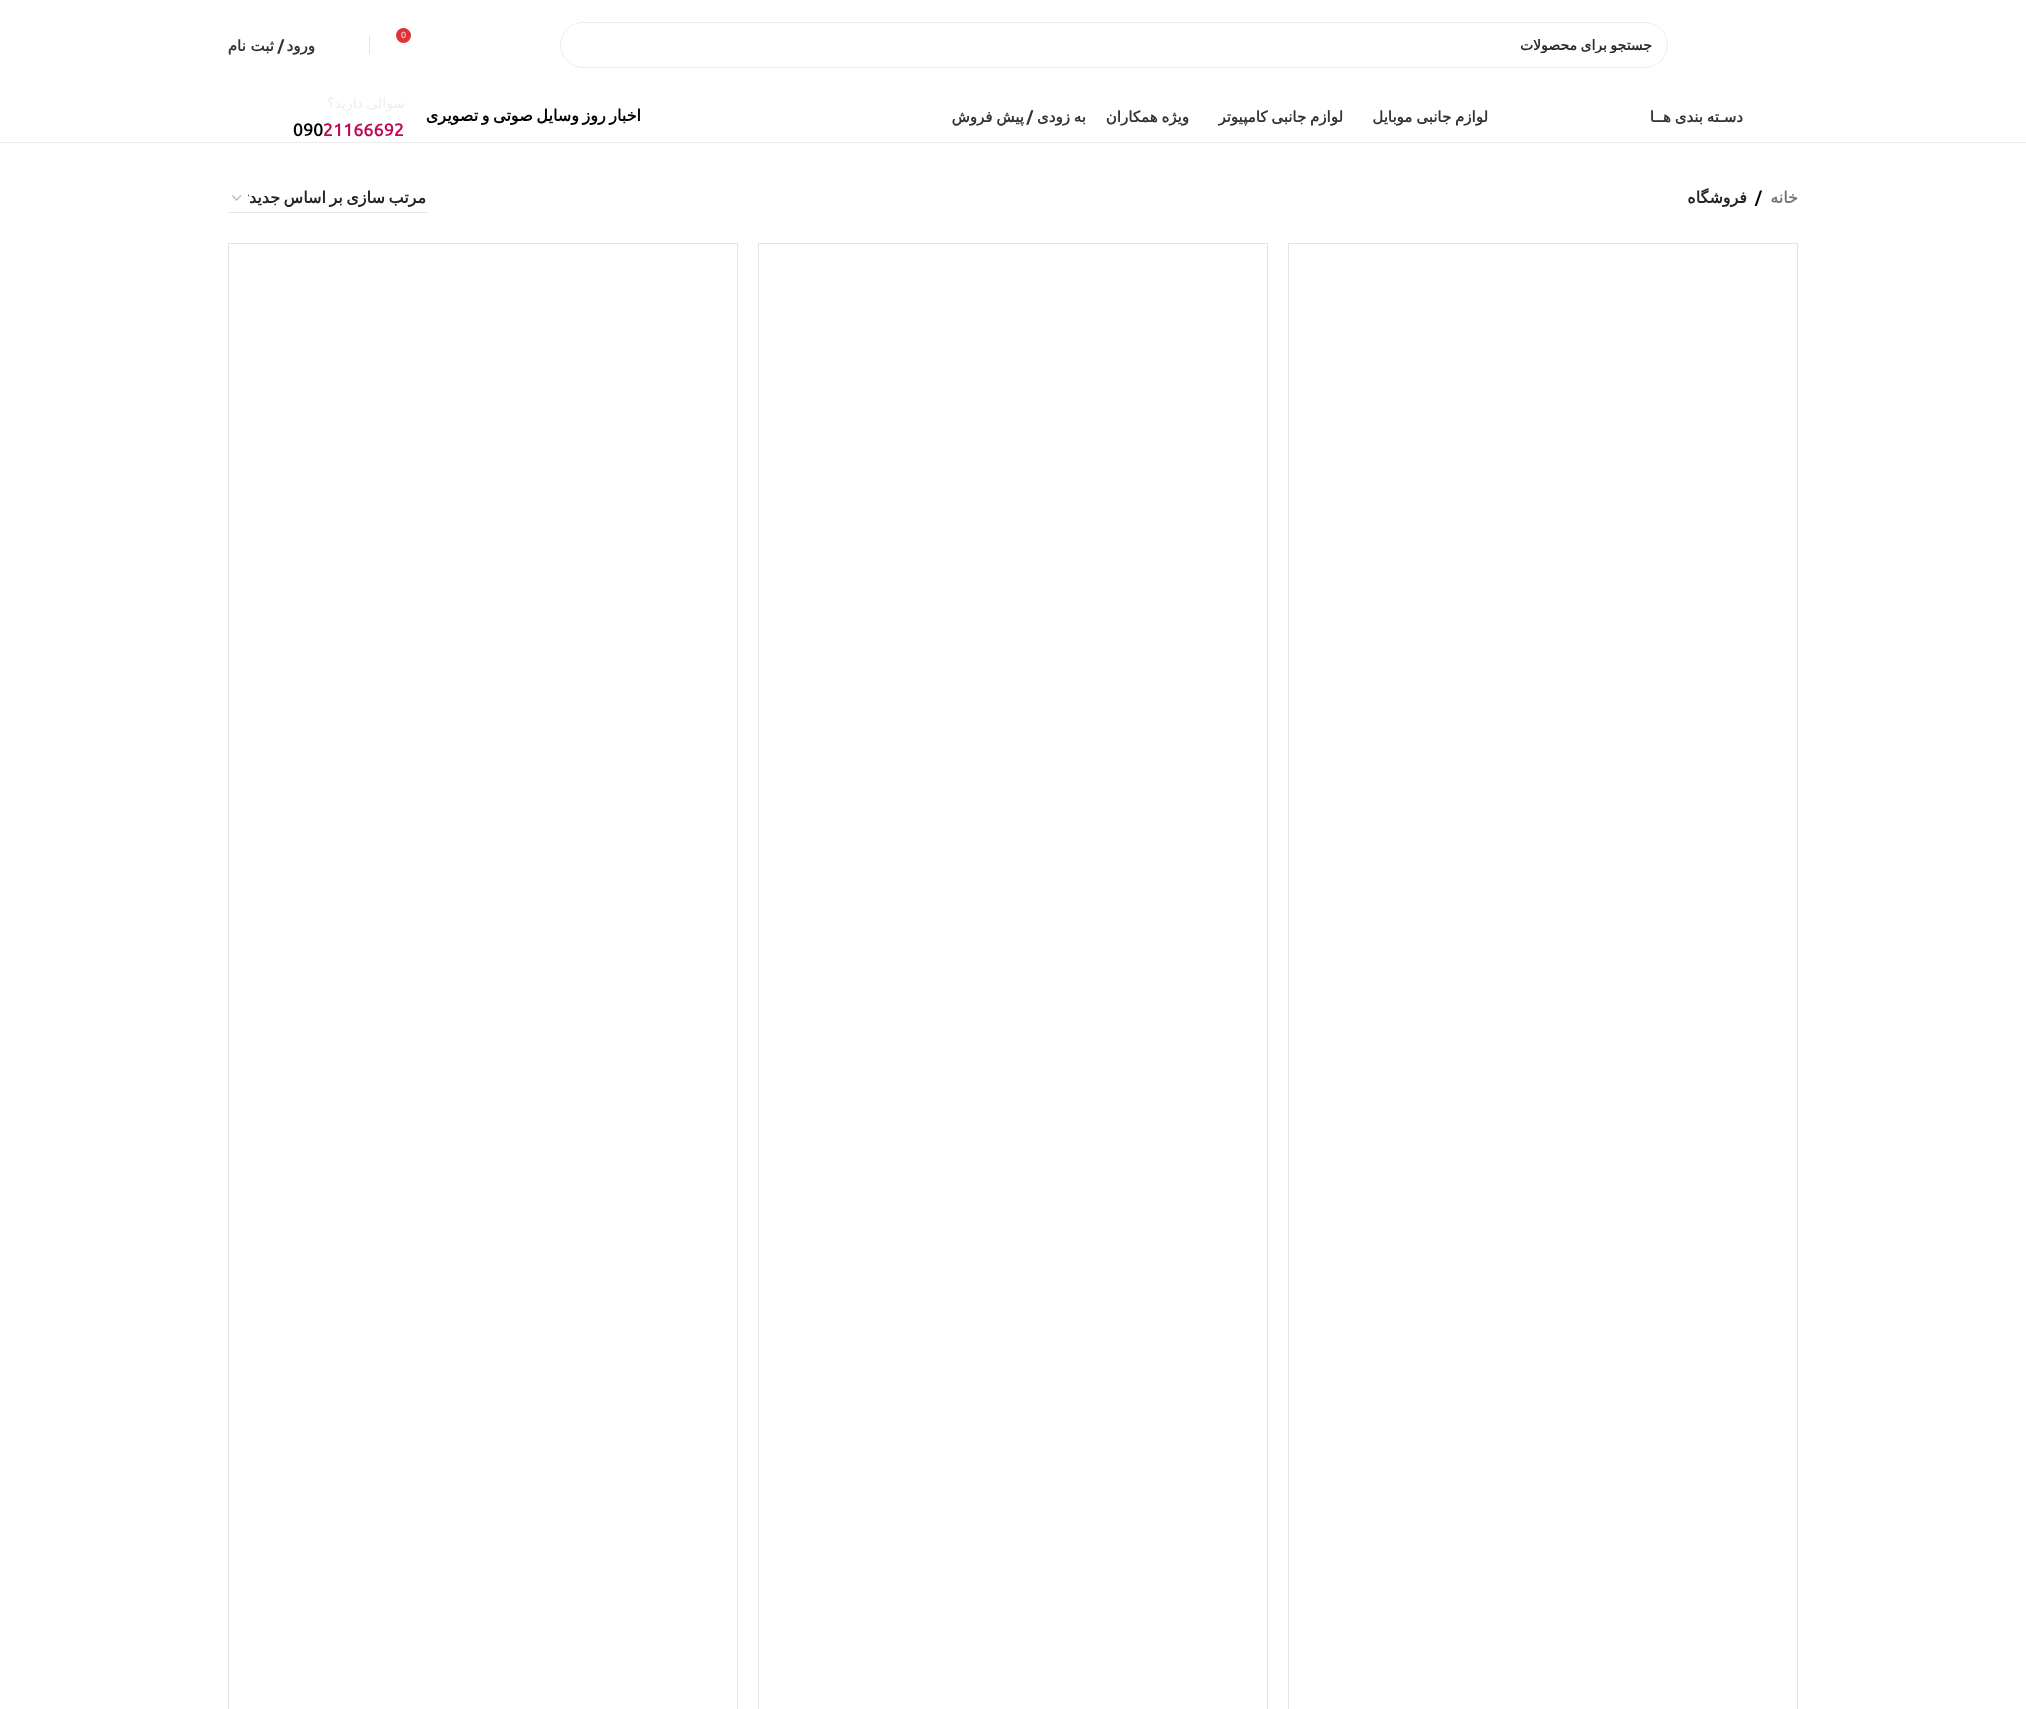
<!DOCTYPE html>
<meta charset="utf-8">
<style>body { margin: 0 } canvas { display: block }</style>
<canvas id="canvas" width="2026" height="1709"></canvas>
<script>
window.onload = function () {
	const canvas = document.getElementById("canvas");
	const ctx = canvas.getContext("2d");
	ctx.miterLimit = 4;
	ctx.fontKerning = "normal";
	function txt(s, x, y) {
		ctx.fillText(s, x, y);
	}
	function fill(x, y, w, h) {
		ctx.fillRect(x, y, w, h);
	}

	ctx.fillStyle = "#FFFFFF";
	fill(0, 0, 2026, 1709);
	ctx.beginPath();
	ctx.roundRect(560.5, 22.5, 1107, 45, 22.5);
	ctx.strokeStyle = "#EDEDED";
	ctx.stroke();
	ctx.fillStyle = "#DD3333";
	ctx.beginPath();
	ctx.arc(403.5, 35.5, 7.5, 0, Math.PI * 2);
	ctx.fill();
	ctx.fillStyle = "#E4E4E4";
	fill(369, 36, 1, 18);
	ctx.fillStyle = "#EDEDED";
	fill(0, 142, 2026, 1);
	ctx.beginPath();
	ctx.moveTo(232.5, 195.5);
	ctx.lineTo(236.5, 200);
	ctx.lineTo(241, 195.5);
	ctx.strokeStyle = "#BBBBBB";
	ctx.lineWidth = 1.4;
	ctx.stroke();
	ctx.fillStyle = "#E6E6E6";
	fill(228, 212, 200, 1);
	ctx.strokeStyle = "#E4E4E4";
	ctx.lineWidth = 1;
	ctx.strokeRect(1288.5, 243.5, 509, 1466);
	ctx.strokeRect(758.5, 243.5, 509, 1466);
	ctx.strokeRect(228.5, 243.5, 509, 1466);
	ctx.save();
	ctx.beginPath();
	ctx.rect(637, 37, 1015, 16);
	ctx.clip();
	ctx.wordSpacing = "-1px";
	ctx.direction = "rtl";
	ctx.font = "bold 14px DejaVu Sans";
	ctx.fillStyle = "#2B2B2B";
	txt("جستجو برای محصولات", 1652, 50);
	ctx.restore();
	ctx.font = "9px Ubuntu";
	ctx.fillStyle = "#FFFFFF";
	txt("0", 401, 38);
	ctx.direction = "rtl";
	ctx.font = "bold 15px DejaVu Sans";
	ctx.fillStyle = "#333333";
	txt("ورود", 315, 51);
	ctx.font = "800 15px Ubuntu";
	txt("/", 284, 51);
	ctx.font = "bold 15px DejaVu Sans";
	txt("ثبت نام", 274, 51);
	ctx.wordSpacing = "-1px";
	txt("دسـته بندی هــا", 1743, 122);
	txt("لوازم جانبی موبایل", 1488, 122);
	txt("لوازم جانبی کامپیوتر", 1343, 122);
	txt("ویژه همکاران", 1189, 122);
	txt("به زودی", 1086, 122);
	ctx.wordSpacing = "0px";
	ctx.font = "800 15px Ubuntu";
	txt("/", 1033, 122);
	ctx.wordSpacing = "-1px";
	ctx.font = "bold 15px DejaVu Sans";
	txt("پیش فروش", 1024, 122);
	ctx.wordSpacing = "-1.5px";
	ctx.font = "bold 16px DejaVu Sans";
	ctx.fillStyle = "#000000";
	txt("اخبار روز وسایل صوتی و تصویری", 641, 121);
	ctx.wordSpacing = "-1px";
	ctx.font = "14px DejaVu Sans";
	ctx.fillStyle = "#EDEDED";
	txt("سوالی دارید؟", 405, 108);
	ctx.wordSpacing = "0px";
	ctx.direction = "ltr";
	ctx.font = "600 18px Ubuntu";
	ctx.fillStyle = "#BF0856";
	txt("21166692", 323, 136);
	ctx.fillStyle = "#000000";
	txt("090", 293, 136);
	ctx.direction = "rtl";
	ctx.font = "bold 16px DejaVu Sans";
	ctx.fillStyle = "#767676";
	txt("خانه", 1798, 203);
	ctx.direction = "ltr";
	ctx.font = "bold 16px Ubuntu";
	ctx.fillStyle = "#000000";
	txt("/", 1755, 203);
	ctx.direction = "rtl";
	ctx.font = "bold 16px DejaVu Sans";
	ctx.fillStyle = "#242424";
	txt("فروشگاه", 1747, 203);
	ctx.save();
	ctx.beginPath();
	ctx.rect(248, 188, 178, 19);
	ctx.clip();
	ctx.wordSpacing = "-1.5px";
	txt("مرتب سازی بر اساس جدیدترین", 426, 203);
	ctx.restore();
};
</script>
